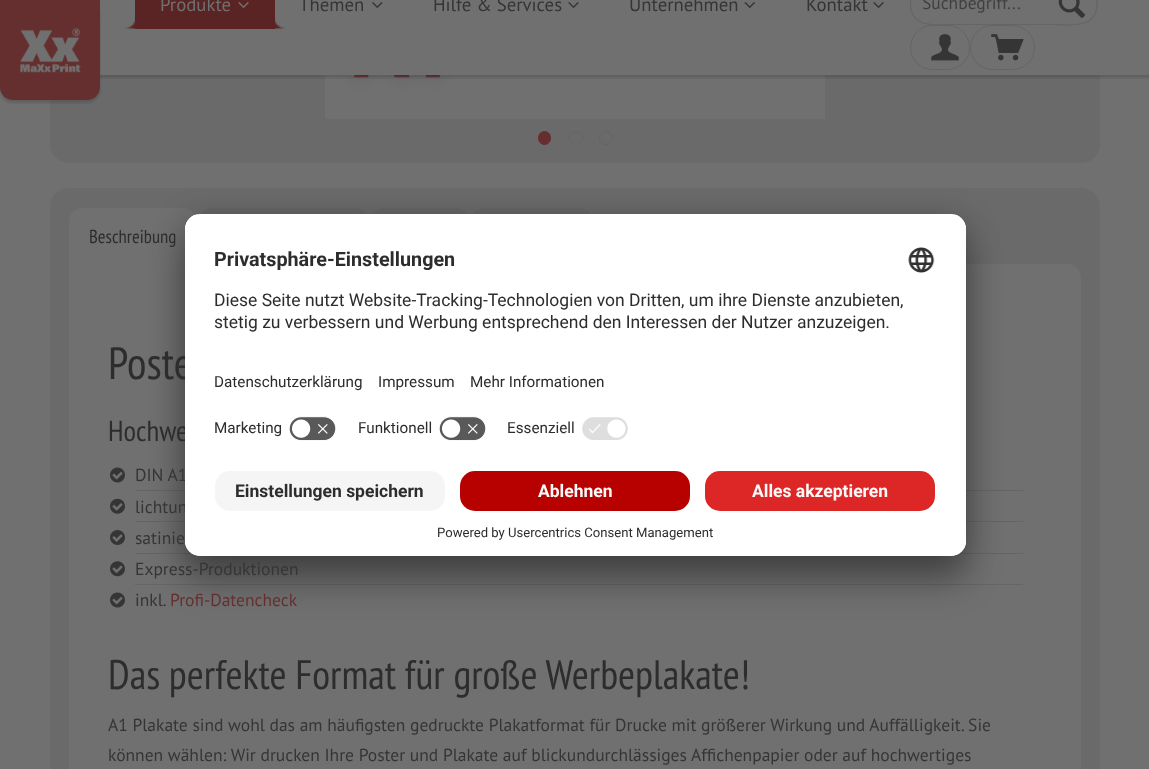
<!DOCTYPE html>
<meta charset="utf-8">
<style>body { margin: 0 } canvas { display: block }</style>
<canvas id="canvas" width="1149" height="769"></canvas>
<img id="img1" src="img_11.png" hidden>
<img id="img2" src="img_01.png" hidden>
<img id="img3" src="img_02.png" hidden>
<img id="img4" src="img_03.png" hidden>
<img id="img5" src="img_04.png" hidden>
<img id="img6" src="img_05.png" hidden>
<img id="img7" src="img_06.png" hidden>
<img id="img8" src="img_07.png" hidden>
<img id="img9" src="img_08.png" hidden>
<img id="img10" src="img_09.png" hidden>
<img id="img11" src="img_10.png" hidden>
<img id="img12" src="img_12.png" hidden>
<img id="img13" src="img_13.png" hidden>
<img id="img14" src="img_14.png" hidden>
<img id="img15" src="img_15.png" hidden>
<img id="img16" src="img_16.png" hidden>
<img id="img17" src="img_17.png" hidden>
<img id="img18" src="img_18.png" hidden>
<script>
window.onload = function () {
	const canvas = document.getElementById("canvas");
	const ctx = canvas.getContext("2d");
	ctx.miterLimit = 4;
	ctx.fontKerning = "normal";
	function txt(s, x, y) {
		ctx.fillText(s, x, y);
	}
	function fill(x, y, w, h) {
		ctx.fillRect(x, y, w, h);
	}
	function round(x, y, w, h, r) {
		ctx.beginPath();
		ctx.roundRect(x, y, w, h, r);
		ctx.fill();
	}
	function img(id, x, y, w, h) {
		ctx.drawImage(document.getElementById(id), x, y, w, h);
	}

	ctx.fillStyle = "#707070";
	fill(0, 0, 1149, 769);
	ctx.fillStyle = "#6A6A6A";
	round(50, -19, 1050, 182, 19);
	img("img1", 325, 75, 500, 44);
	ctx.fillStyle = "rgba(36, 36, 36, 0.2)";
	ctx.filter = "blur(1px)";
	ctx.beginPath();
	ctx.rect(0, 3, 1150, 75);
	ctx.fill();
	ctx.filter = "none";
	ctx.fillStyle = "#707070";
	fill(100, 0, 1049, 75);
	ctx.fillStyle = "rgba(36, 36, 36, 0.2)";
	ctx.filter = "blur(1px)";
	ctx.beginPath();
	ctx.roundRect(0, 3, 100, 100, 13);
	ctx.fill();
	ctx.filter = "none";
	ctx.fillStyle = "#662F2F";
	ctx.beginPath();
	ctx.roundRect(0, 0, 100, 100, [0, 0, 13, 13]);
	ctx.fill();
	img("img2", 20, 28, 61, 45);
	ctx.fillStyle = "#5B2424";
	fill(135, 0, 140, 29);
	img("img3", 238, 2, 11, 6);
	img("img4", 124, 17, 15, 13);
	img("img5", 271, 17, 15, 13);
	img("img6", 372, 2, 11, 6);
	img("img7", 568, 2, 11, 6);
	img("img8", 744, 2, 11, 6);
	img("img7", 873, 2, 11, 6);
	ctx.beginPath();
	ctx.roundRect(910.5, 25.5, 59, 44, 22);
	ctx.strokeStyle = "#656568";
	ctx.stroke();
	ctx.beginPath();
	ctx.roundRect(970.5, 25.5, 64, 44, 22);
	ctx.stroke();
	ctx.beginPath();
	ctx.moveTo(1091, -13.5);
	ctx.bezierCurveTo(1096.5, -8.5, 1097, -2, 1097, 5);
	ctx.bezierCurveTo(1096, 29.5, 1069, 24.5, 1053, 24.5);
	ctx.lineTo(954.5, 24.5);
	ctx.bezierCurveTo(938.5, 24.5, 911.5, 29.5, 910.5, 5);
	ctx.bezierCurveTo(910.5, -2, 911, -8.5, 916.5, -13.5);
	ctx.lineWidth = 1.2;
	ctx.stroke();
	img("img9", 1058, 0, 27, 18);
	img("img10", 931, 34, 28, 27);
	img("img11", 991, 34, 33, 27);
	ctx.fillStyle = "#662F2F";
	ctx.beginPath();
	ctx.roundRect(538.5, 131.5, 12, 13, 6);
	ctx.fill();
	ctx.strokeStyle = "#662F2F";
	ctx.lineWidth = 1;
	ctx.stroke();
	ctx.beginPath();
	ctx.arc(576, 138, 6.5, 0, Math.PI * 2);
	ctx.strokeStyle = "#656568";
	ctx.stroke();
	ctx.beginPath();
	ctx.arc(606, 138, 6.5, 0, Math.PI * 2);
	ctx.stroke();
	ctx.fillStyle = "#6A6A6A";
	round(50, 188, 1050, 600, 19);
	ctx.fillStyle = "#707070";
	ctx.beginPath();
	ctx.roundRect(69, 208, 127, 56, [13, 13, 0, 0]);
	ctx.fill();
	ctx.fillStyle = "#666666";
	ctx.beginPath();
	ctx.roundRect(199, 208, 169, 56, [13, 13, 0, 0]);
	ctx.fill();
	ctx.beginPath();
	ctx.roundRect(370, 208, 99, 56, [13, 13, 0, 0]);
	ctx.fill();
	ctx.beginPath();
	ctx.roundRect(471, 208, 122, 56, [13, 13, 0, 0]);
	ctx.fill();
	ctx.fillStyle = "#707070";
	ctx.beginPath();
	ctx.moveTo(69, 264);
	ctx.lineTo(1068, 264);
	ctx.bezierCurveTo(1075, 264, 1081, 270, 1081, 277);
	ctx.lineTo(1081, 769);
	ctx.bezierCurveTo(1081, 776, 1075, 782, 1068, 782);
	ctx.lineTo(82, 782);
	ctx.bezierCurveTo(75, 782, 69, 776, 69, 769);
	ctx.closePath();
	ctx.fill();
	ctx.fillStyle = "#656568";
	fill(135, 490, 888, 1);
	img("img12", 110, 467, 15, 16);
	fill(135, 521, 888, 1);
	img("img13", 110, 498, 15, 16);
	fill(135, 553, 888, 1);
	img("img14", 110, 530, 15, 15);
	fill(135, 584, 888, 1);
	img("img15", 110, 561, 15, 16);
	img("img12", 110, 592, 15, 16);
	ctx.fillStyle = "rgba(0, 0, 0, 0.3)";
	ctx.filter = "blur(17.5px)";
	ctx.beginPath();
	ctx.roundRect(185, 239, 781, 342, 15);
	ctx.fill();
	ctx.filter = "none";
	ctx.fillStyle = "rgba(0, 0, 0, 0.22)";
	ctx.filter = "blur(16px)";
	ctx.beginPath();
	ctx.roundRect(185, 220, 781, 343, 15);
	ctx.fill();
	ctx.filter = "none";
	ctx.font = "18.75px PT Sans";
	ctx.fillStyle = "#707070";
	txt("Produkte", 160, 11);
	ctx.fillStyle = "#353535";
	txt("Themen", 299, 11);
	txt("Hilfe & Services", 433, 11);
	txt("Unternehmen", 629, 11);
	txt("Kontakt", 806, 11);
	ctx.font = "17.5px PT Sans";
	ctx.fillStyle = "#404040";
	txt("Suchbegriff...", 922, 9);
	ctx.font = "18.75px PT Sans Narrow";
	ctx.fillStyle = "#2D2D2D";
	txt("Beschreibung", 89, 243);
	ctx.font = "45px PT Sans Narrow";
	txt("Poste", 108, 379);
	ctx.font = "29px PT Sans Narrow";
	txt("Hochwe", 108, 441);
	ctx.font = "17.5px PT Sans";
	ctx.fillStyle = "#353535";
	txt("DIN A1", 135, 481);
	txt("lichtun", 135, 513);
	txt("satinie", 135, 544);
	txt("Express-Produktionen", 135, 575);
	txt("inkl.", 135, 606);
	ctx.fillStyle = "#662F2F";
	txt("Profi-Datencheck", 170, 606);
	ctx.font = "41.25px PT Sans Narrow";
	ctx.fillStyle = "#2D2D2D";
	txt("Das perfekte Format für große Werbeplakate!", 108, 689);
	ctx.font = "17.5px PT Sans";
	ctx.fillStyle = "#353535";
	txt("A1 Plakate sind wohl das am häufigsten gedruckte Plakatformat für Drucke mit größerer Wirkung und Auffälligkeit. Sie", 108, 731);
	txt("können wählen: Wir drucken Ihre Poster und Plakate auf blickundurchlässiges Affichenpapier oder auf hochwertiges", 108, 761);
	ctx.fillStyle = "#FFFFFF";
	round(185, 214, 781, 342, 15);
	ctx.save();
	ctx.beginPath();
	ctx.roundRect(185, 214, 781, 342, 15);
	ctx.clip();
	ctx.beginPath();
	ctx.roundRect(185, 214, 781, 247, [15, 15, 0, 0]);
	ctx.clip();
	fill(185, 215, 781, 246);
	fill(185, 215, 781, 196);
	ctx.restore();
	ctx.font = "bold 19.75px Roboto";
	ctx.fillStyle = "#2D2D2D";
	txt("Privatsphäre-Einstellungen", 214, 266);
	img("img16", 908, 247, 27, 26);
	ctx.font = "17.5px Roboto";
	txt("Diese Seite nutzt Website-Tracking-Technologien von Dritten, um ihre Dienste anzubieten,", 214, 306);
	txt("stetig zu verbessern und Werbung entsprechend den Interessen der Nutzer anzuzeigen.", 214, 328);
	ctx.font = "15.25px Roboto";
	txt("Datenschutzerklärung", 214, 387);
	txt("Impressum", 378, 387);
	txt("Mehr Informationen", 470, 387);
	txt("Marketing", 214, 433);
	img("img17", 289, 416, 47, 25);
	txt("Funktionell", 358, 433);
	img("img17", 439, 416, 47, 25);
	txt("Essenziell", 507, 433);
	img("img18", 582, 417, 46, 23);
	ctx.fillStyle = "#FFFFFF";
	ctx.beginPath();
	ctx.roundRect(185, 461, 781, 95, [0, 0, 15, 15]);
	ctx.fill();
	ctx.fillStyle = "#F5F5F5";
	round(215, 471, 230, 40, 15);
	ctx.font = "bold 17.5px Roboto";
	ctx.fillStyle = "#2D2D2D";
	txt("Einstellungen speichern", 235, 497);
	ctx.fillStyle = "#B70000";
	round(460, 471, 230, 40, 15);
	ctx.fillStyle = "#FAFAFA";
	txt("Ablehnen", 538, 497);
	ctx.fillStyle = "#DD2626";
	round(705, 471, 230, 40, 15);
	ctx.fillStyle = "#FAFAFA";
	txt("Alles akzeptieren", 752, 497);
	ctx.font = "13.1px Roboto";
	ctx.fillStyle = "#2D2D2D";
	txt("Powered by Usercentrics Consent Management", 437, 537);
};
</script>
